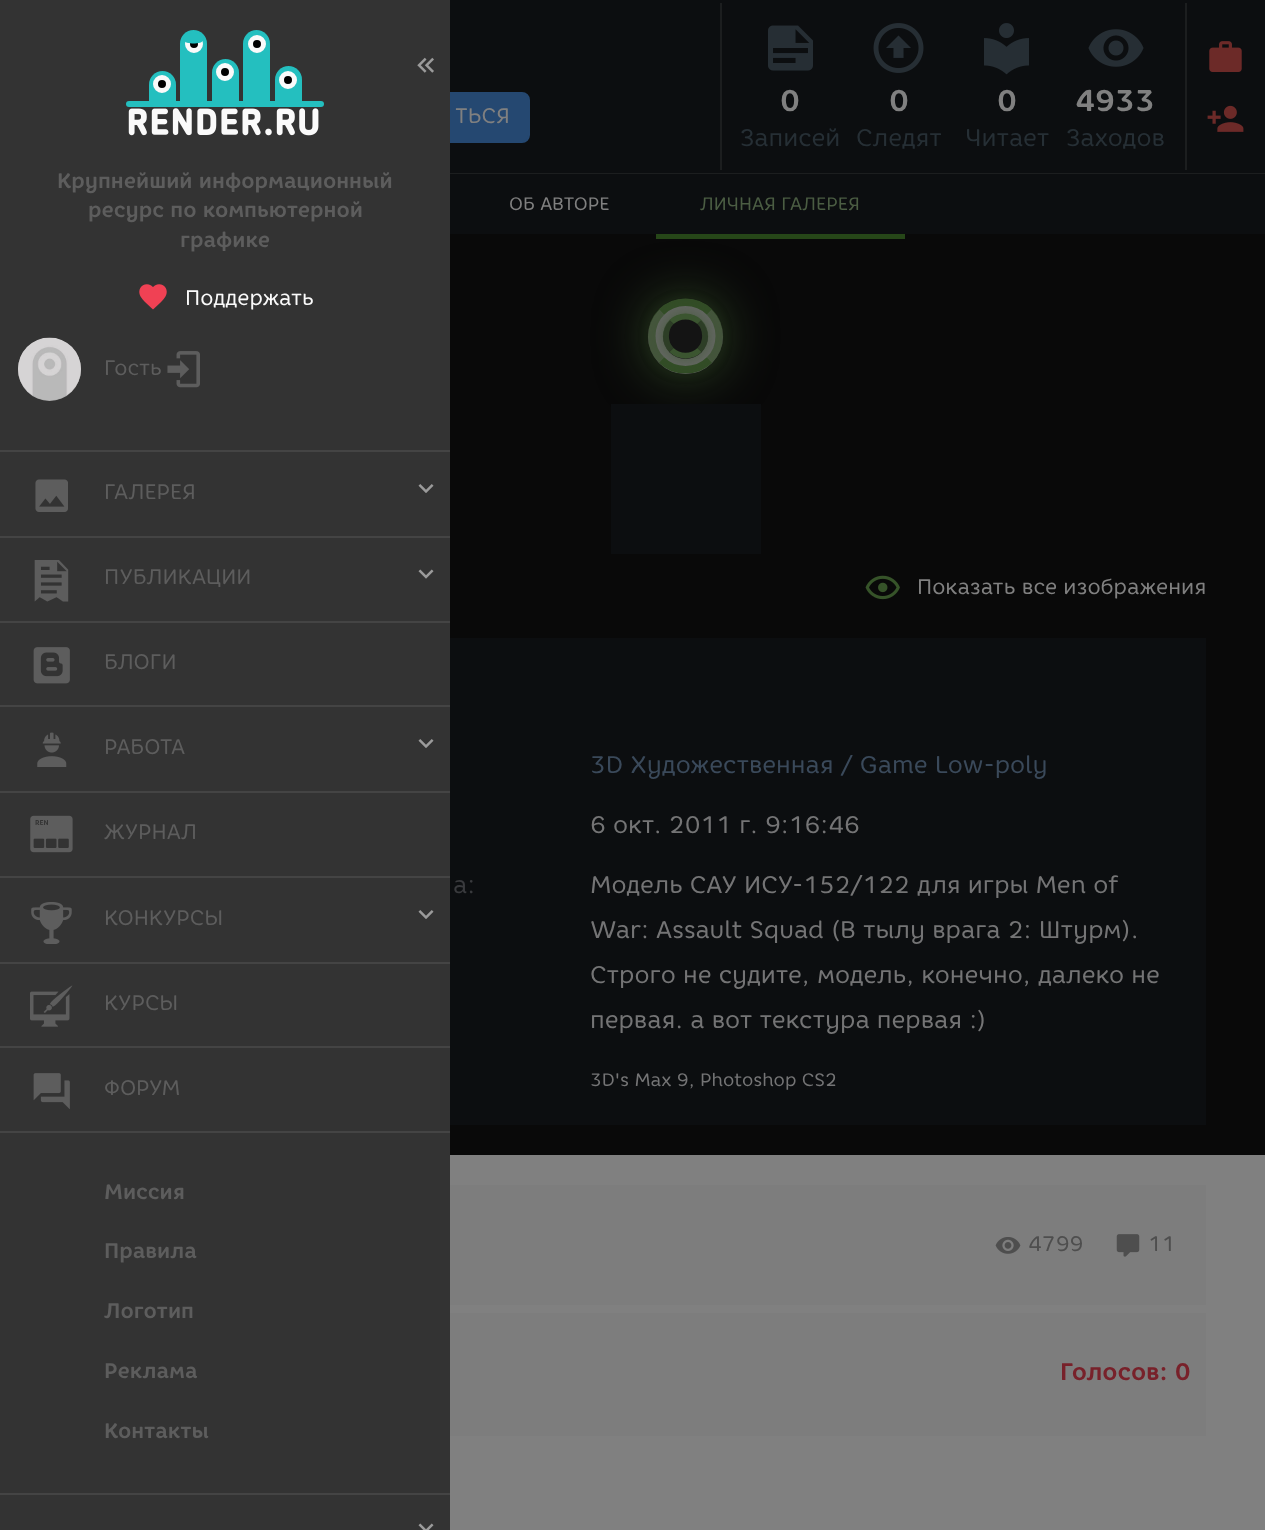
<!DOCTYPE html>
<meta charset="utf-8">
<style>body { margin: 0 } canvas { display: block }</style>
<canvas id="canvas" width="1265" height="1530"></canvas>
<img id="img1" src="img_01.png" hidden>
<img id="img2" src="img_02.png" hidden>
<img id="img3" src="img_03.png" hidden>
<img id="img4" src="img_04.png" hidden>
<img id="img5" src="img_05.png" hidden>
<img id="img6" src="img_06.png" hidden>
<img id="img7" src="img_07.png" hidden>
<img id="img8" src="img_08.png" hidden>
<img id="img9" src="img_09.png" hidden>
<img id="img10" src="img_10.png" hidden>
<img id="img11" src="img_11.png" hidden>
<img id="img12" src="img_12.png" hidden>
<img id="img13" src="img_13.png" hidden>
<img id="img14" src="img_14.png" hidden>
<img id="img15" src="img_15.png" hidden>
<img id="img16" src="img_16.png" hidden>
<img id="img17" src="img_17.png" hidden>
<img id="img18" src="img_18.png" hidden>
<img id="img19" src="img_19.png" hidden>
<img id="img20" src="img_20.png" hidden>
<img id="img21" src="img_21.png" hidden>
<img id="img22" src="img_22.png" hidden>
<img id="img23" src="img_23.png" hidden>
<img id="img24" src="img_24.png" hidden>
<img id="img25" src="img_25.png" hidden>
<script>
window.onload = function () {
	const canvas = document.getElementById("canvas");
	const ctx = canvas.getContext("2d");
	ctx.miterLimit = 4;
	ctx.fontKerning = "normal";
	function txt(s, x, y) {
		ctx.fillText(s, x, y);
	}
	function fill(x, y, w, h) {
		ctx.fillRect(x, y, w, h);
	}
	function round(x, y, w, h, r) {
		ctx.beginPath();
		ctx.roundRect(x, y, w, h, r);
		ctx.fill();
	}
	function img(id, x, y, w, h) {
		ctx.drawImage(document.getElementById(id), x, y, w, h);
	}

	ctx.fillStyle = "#090909";
	fill(0, 0, 1265, 1530);
	ctx.fillStyle = "#0C0E10";
	fill(450, 0, 815, 173);
	ctx.fillStyle = "#254871";
	ctx.beginPath();
	ctx.roundRect(297, 93, 232, 49, 7);
	ctx.fill();
	ctx.strokeStyle = "#254871";
	ctx.lineWidth = 2;
	ctx.stroke();
	ctx.fillStyle = "#333333";
	fill(0, 0, 450, 1530);
	img("img1", 417, 57, 17, 16);
	img("img2", 128, 108, 191, 28);
	ctx.fillStyle = "#24BFBF";
	round(126, 101, 198, 6, 3);
	ctx.beginPath();
	ctx.roundRect(149, 71, 27, 36, [13.5, 13.5, 0, 0]);
	ctx.fill();
	ctx.fillStyle = "#000000";
	ctx.beginPath();
	ctx.arc(162, 84, 6.5, 0, Math.PI * 2);
	ctx.fill();
	ctx.strokeStyle = "#FAFAFA";
	ctx.lineWidth = 5;
	ctx.stroke();
	ctx.fillStyle = "#24BFBF";
	ctx.beginPath();
	ctx.roundRect(180, 30, 27, 77, [13.5, 13.5, 0, 0]);
	ctx.fill();
	ctx.fillStyle = "#000000";
	ctx.beginPath();
	ctx.arc(194, 44, 6.5, 0, Math.PI * 2);
	ctx.fill();
	ctx.stroke();
	ctx.fillStyle = "#24BFBF";
	ctx.beginPath();
	ctx.moveTo(193.5, 33);
	ctx.bezierCurveTo(197, 33, 204, 33.5, 204, 38);
	ctx.bezierCurveTo(204, 43, 197, 43.5, 193.5, 43.5);
	ctx.bezierCurveTo(190, 43.5, 183, 43, 183, 38);
	ctx.bezierCurveTo(183, 33.5, 190, 33, 193.5, 33);
	ctx.closePath();
	ctx.fill();
	ctx.beginPath();
	ctx.roundRect(212, 59, 27, 48, [13.5, 13.5, 0, 0]);
	ctx.fill();
	ctx.fillStyle = "#000000";
	ctx.beginPath();
	ctx.arc(225, 72, 6.5, 0, Math.PI * 2);
	ctx.fill();
	ctx.stroke();
	ctx.fillStyle = "#24BFBF";
	ctx.beginPath();
	ctx.roundRect(243, 30, 27, 77, [13.5, 13.5, 0, 0]);
	ctx.fill();
	ctx.fillStyle = "#000000";
	ctx.beginPath();
	ctx.arc(257, 44, 6.5, 0, Math.PI * 2);
	ctx.fill();
	ctx.stroke();
	ctx.fillStyle = "#24BFBF";
	ctx.beginPath();
	ctx.roundRect(275, 66, 27, 41, [13.5, 13.5, 0, 0]);
	ctx.fill();
	ctx.fillStyle = "#000000";
	ctx.beginPath();
	ctx.arc(288, 80, 6.5, 0, Math.PI * 2);
	ctx.fill();
	ctx.stroke();
	img("img3", 139, 284, 28, 26);
	ctx.fillStyle = "#AAAAAA";
	ctx.beginPath();
	ctx.arc(49.5, 369.5, 31.5, 0, Math.PI * 2);
	ctx.fill();
	img("img4", 18, 337, 63, 64);
	img("img5", 167, 351, 33, 37);
	ctx.fillStyle = "#444444";
	fill(0, 450, 450, 2);
	img("img6", 35, 479, 33, 33);
	img("img7", 418, 484, 16, 9);
	fill(0, 536, 450, 2);
	img("img8", 34, 560, 35, 42);
	img("img9", 418, 569, 16, 10);
	fill(0, 621, 450, 2);
	img("img10", 33, 647, 37, 37);
	fill(0, 705, 450, 2);
	img("img11", 37, 732, 30, 35);
	img("img7", 418, 739, 16, 9);
	fill(0, 791, 450, 2);
	img("img12", 30, 815, 43, 38);
	fill(0, 876, 450, 2);
	img("img13", 31, 902, 41, 42);
	img("img7", 418, 910, 16, 9);
	fill(0, 962, 450, 2);
	img("img14", 30, 985, 43, 42);
	fill(0, 1046, 450, 2);
	img("img15", 33, 1073, 37, 36);
	fill(0, 1131, 450, 2);
	fill(0, 1493, 450, 2);
	img("img16", 418, 1523, 16, 7);
	ctx.fillStyle = "#1C1E1F";
	fill(720, 3, 2, 167);
	img("img17", 768, 25, 45, 46);
	img("img18", 873, 23, 51, 50);
	img("img19", 984, 23, 45, 52);
	img("img20", 1088, 29, 56, 38);
	fill(1185, 3, 2, 167);
	img("img21", 1209, 41, 33, 31);
	img("img22", 1207, 105, 37, 27);
	fill(450, 173, 815, 1);
	ctx.fillStyle = "#0C0E10";
	fill(450, 174, 815, 60);
	ctx.fillStyle = "#264618";
	fill(656, 234, 249, 5);
	ctx.save();
	ctx.beginPath();
	ctx.moveTo(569, 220);
	ctx.lineTo(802, 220);
	ctx.lineTo(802, 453);
	ctx.lineTo(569, 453);
	ctx.closePath();
	ctx.moveTo(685.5, 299);
	ctx.bezierCurveTo(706, 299, 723, 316, 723, 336.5);
	ctx.bezierCurveTo(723, 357, 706, 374, 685.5, 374);
	ctx.bezierCurveTo(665, 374, 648, 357, 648, 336.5);
	ctx.bezierCurveTo(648, 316, 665, 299, 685.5, 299);
	ctx.closePath();
	ctx.clip("evenodd");
	ctx.fillStyle = "#324C26";
	ctx.filter = "blur(26px)";
	ctx.beginPath();
	ctx.roundRect(648, 299, 75, 75, 37.5);
	ctx.fill();
	ctx.filter = "none";
	ctx.restore();
	ctx.fillStyle = "rgba(116, 116, 116, 0.9)";
	ctx.beginPath();
	ctx.arc(685.5, 336.5, 37.5, 0, Math.PI * 2);
	ctx.fill();
	ctx.beginPath();
	ctx.moveTo(661.5, 312);
	ctx.bezierCurveTo(674.5, 299, 696.5, 299, 709.5, 312);
	ctx.strokeStyle = "#324C26";
	ctx.lineWidth = 7.5;
	ctx.stroke();
	ctx.beginPath();
	ctx.moveTo(709.5, 312);
	ctx.bezierCurveTo(722.5, 325, 722.5, 347, 709.5, 360);
	ctx.strokeStyle = "rgba(50, 76, 38, 0.65)";
	ctx.stroke();
	ctx.beginPath();
	ctx.moveTo(709.5, 360);
	ctx.bezierCurveTo(696.5, 373, 674.5, 373, 661.5, 360);
	ctx.strokeStyle = "#324C26";
	ctx.stroke();
	ctx.beginPath();
	ctx.moveTo(661.5, 360);
	ctx.bezierCurveTo(648.5, 347, 648.5, 325, 661.5, 312);
	ctx.strokeStyle = "rgba(50, 76, 38, 0.65)";
	ctx.stroke();
	ctx.save();
	ctx.beginPath();
	ctx.moveTo(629, 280);
	ctx.lineTo(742, 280);
	ctx.lineTo(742, 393);
	ctx.lineTo(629, 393);
	ctx.closePath();
	ctx.moveTo(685.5, 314);
	ctx.bezierCurveTo(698, 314, 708, 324, 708, 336.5);
	ctx.bezierCurveTo(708, 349, 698, 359, 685.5, 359);
	ctx.bezierCurveTo(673, 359, 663, 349, 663, 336.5);
	ctx.bezierCurveTo(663, 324, 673, 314, 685.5, 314);
	ctx.closePath();
	ctx.clip("evenodd");
	ctx.fillStyle = "rgba(54, 83, 41, 0.9)";
	ctx.filter = "blur(11px)";
	ctx.beginPath();
	ctx.roundRect(663, 314, 45, 45, 22.5);
	ctx.fill();
	ctx.filter = "none";
	ctx.restore();
	ctx.fillStyle = "rgba(11, 11, 11, 0.9)";
	ctx.beginPath();
	ctx.arc(685.5, 336.5, 22.5, 0, Math.PI * 2);
	ctx.fill();
	ctx.beginPath();
	ctx.moveTo(671.5, 322);
	ctx.bezierCurveTo(679, 314.5, 692, 314.5, 699.5, 322);
	ctx.strokeStyle = "#3B5530";
	ctx.lineWidth = 6;
	ctx.stroke();
	ctx.beginPath();
	ctx.moveTo(699.5, 322);
	ctx.bezierCurveTo(707, 329.5, 707, 342.5, 699.5, 350);
	ctx.strokeStyle = "rgba(59, 85, 48, 0.65)";
	ctx.stroke();
	ctx.beginPath();
	ctx.moveTo(699.5, 350);
	ctx.bezierCurveTo(692, 357.5, 679, 357.5, 671.5, 350);
	ctx.strokeStyle = "#3B5530";
	ctx.stroke();
	ctx.beginPath();
	ctx.moveTo(671.5, 350);
	ctx.bezierCurveTo(664, 342.5, 664, 329.5, 671.5, 322);
	ctx.strokeStyle = "rgba(59, 85, 48, 0.65)";
	ctx.stroke();
	ctx.fillStyle = "#0C0E10";
	fill(611, 404, 150, 150);
	img("img23", 865, 575, 35, 25);
	fill(450, 638, 756, 487);
	ctx.fillStyle = "#808080";
	fill(450, 1155, 815, 375);
	ctx.fillStyle = "#7D7D7D";
	fill(450, 1185, 756, 120);
	img("img24", 995, 1237, 26, 17);
	img("img25", 1116, 1234, 24, 23);
	fill(450, 1313, 756, 123);
	ctx.font = "bold 21px 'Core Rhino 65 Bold'";
	ctx.fillStyle = "#5D5D5D";
	txt("Крупнейший информационный", 57, 188);
	txt("ресурс по компьютерной", 88, 217);
	txt("графике", 180, 247);
	ctx.font = "21px 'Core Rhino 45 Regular'";
	ctx.fillStyle = "#FAFAFA";
	txt("Поддержать", 185, 305);
	ctx.fillStyle = "#5D5D5D";
	txt("Гость", 104, 375);
	txt("ГАЛЕРЕЯ", 104, 499);
	txt("ПУБЛИКАЦИИ", 104, 584);
	txt("БЛОГИ", 104, 669);
	txt("РАБОТА", 104, 754);
	ctx.font = "bold 7px 'Core Rhino 65 Bold'";
	ctx.fillStyle = "#333333";
	txt("REN", 35, 825);
	ctx.font = "21px 'Core Rhino 45 Regular'";
	ctx.fillStyle = "#5D5D5D";
	txt("ЖУРНАЛ", 104, 839);
	txt("КОНКУРСЫ", 104, 925);
	txt("КУРСЫ", 104, 1010);
	txt("ФОРУМ", 104, 1095);
	ctx.font = "bold 21px 'Core Rhino 65 Bold'";
	txt("Миссия", 104, 1199);
	txt("Правила", 104, 1258);
	txt("Логотип", 104, 1318);
	txt("Реклама", 104, 1378);
	txt("Контакты", 104, 1438);
	ctx.font = "21px 'Core Rhino 45 Regular'";
	ctx.fillStyle = "#808080";
	txt("ТЬСЯ", 455, 123);
	ctx.font = "bold 30px 'Core Rhino 65 Bold'";
	txt("0", 780, 111);
	ctx.font = "24px 'Core Rhino 45 Regular'";
	ctx.fillStyle = "#262F35";
	txt("Записей", 740, 146);
	ctx.font = "bold 30px 'Core Rhino 65 Bold'";
	ctx.fillStyle = "#808080";
	txt("0", 889, 111);
	ctx.font = "24px 'Core Rhino 45 Regular'";
	ctx.fillStyle = "#262F35";
	txt("Следят", 856, 146);
	ctx.font = "bold 30px 'Core Rhino 65 Bold'";
	ctx.fillStyle = "#808080";
	txt("0", 997, 111);
	ctx.font = "24px 'Core Rhino 45 Regular'";
	ctx.fillStyle = "#262F35";
	txt("Читает", 965, 146);
	ctx.font = "bold 30px 'Core Rhino 65 Bold'";
	ctx.fillStyle = "#808080";
	txt("4933", 1075, 111);
	ctx.font = "24px 'Core Rhino 45 Regular'";
	ctx.fillStyle = "#262F35";
	txt("Заходов", 1066, 146);
	ctx.font = "18px 'Core Rhino 45 Regular'";
	ctx.fillStyle = "#808080";
	txt("ОБ АВТОРЕ", 509, 210);
	ctx.fillStyle = "#4B5D43";
	txt("ЛИЧНАЯ ГАЛЕРЕЯ", 700, 210);
	ctx.font = "21px 'Core Rhino 45 Regular'";
	ctx.fillStyle = "#808080";
	txt("Показать все изображения", 917, 594);
	ctx.font = "24px 'Core Rhino 45 Regular'";
	ctx.fillStyle = "#3A495A";
	txt("3D Художественная / Game Low-poly", 590, 773);
	ctx.fillStyle = "#747475";
	txt("6 окт. 2011 г. 9:16:46", 590, 833);
	ctx.fillStyle = "#393A3D";
	txt("а:", 453, 893);
	ctx.fillStyle = "#747475";
	txt("Модель САУ ИСУ-152/122 для игры Men of", 590, 893);
	txt("War: Assault Squad (В тылу врага 2: Штурм).", 590, 938);
	txt("Строго не судите, модель, конечно, далеко не", 590, 983);
	txt("первая. а вот текстура первая :)", 590, 1028);
	ctx.font = "18px 'Core Rhino 45 Regular'";
	txt("3D's Max 9, Photoshop CS2", 590, 1086);
	ctx.font = "21px 'Core Rhino 45 Regular'";
	ctx.fillStyle = "#4E4E4E";
	txt("4799", 1028, 1251);
	txt("11", 1148, 1251);
	ctx.font = "bold 24px 'Core Rhino 65 Bold'";
	ctx.fillStyle = "#78212A";
	txt("Голосов: 0", 1060, 1380);
};
</script>
